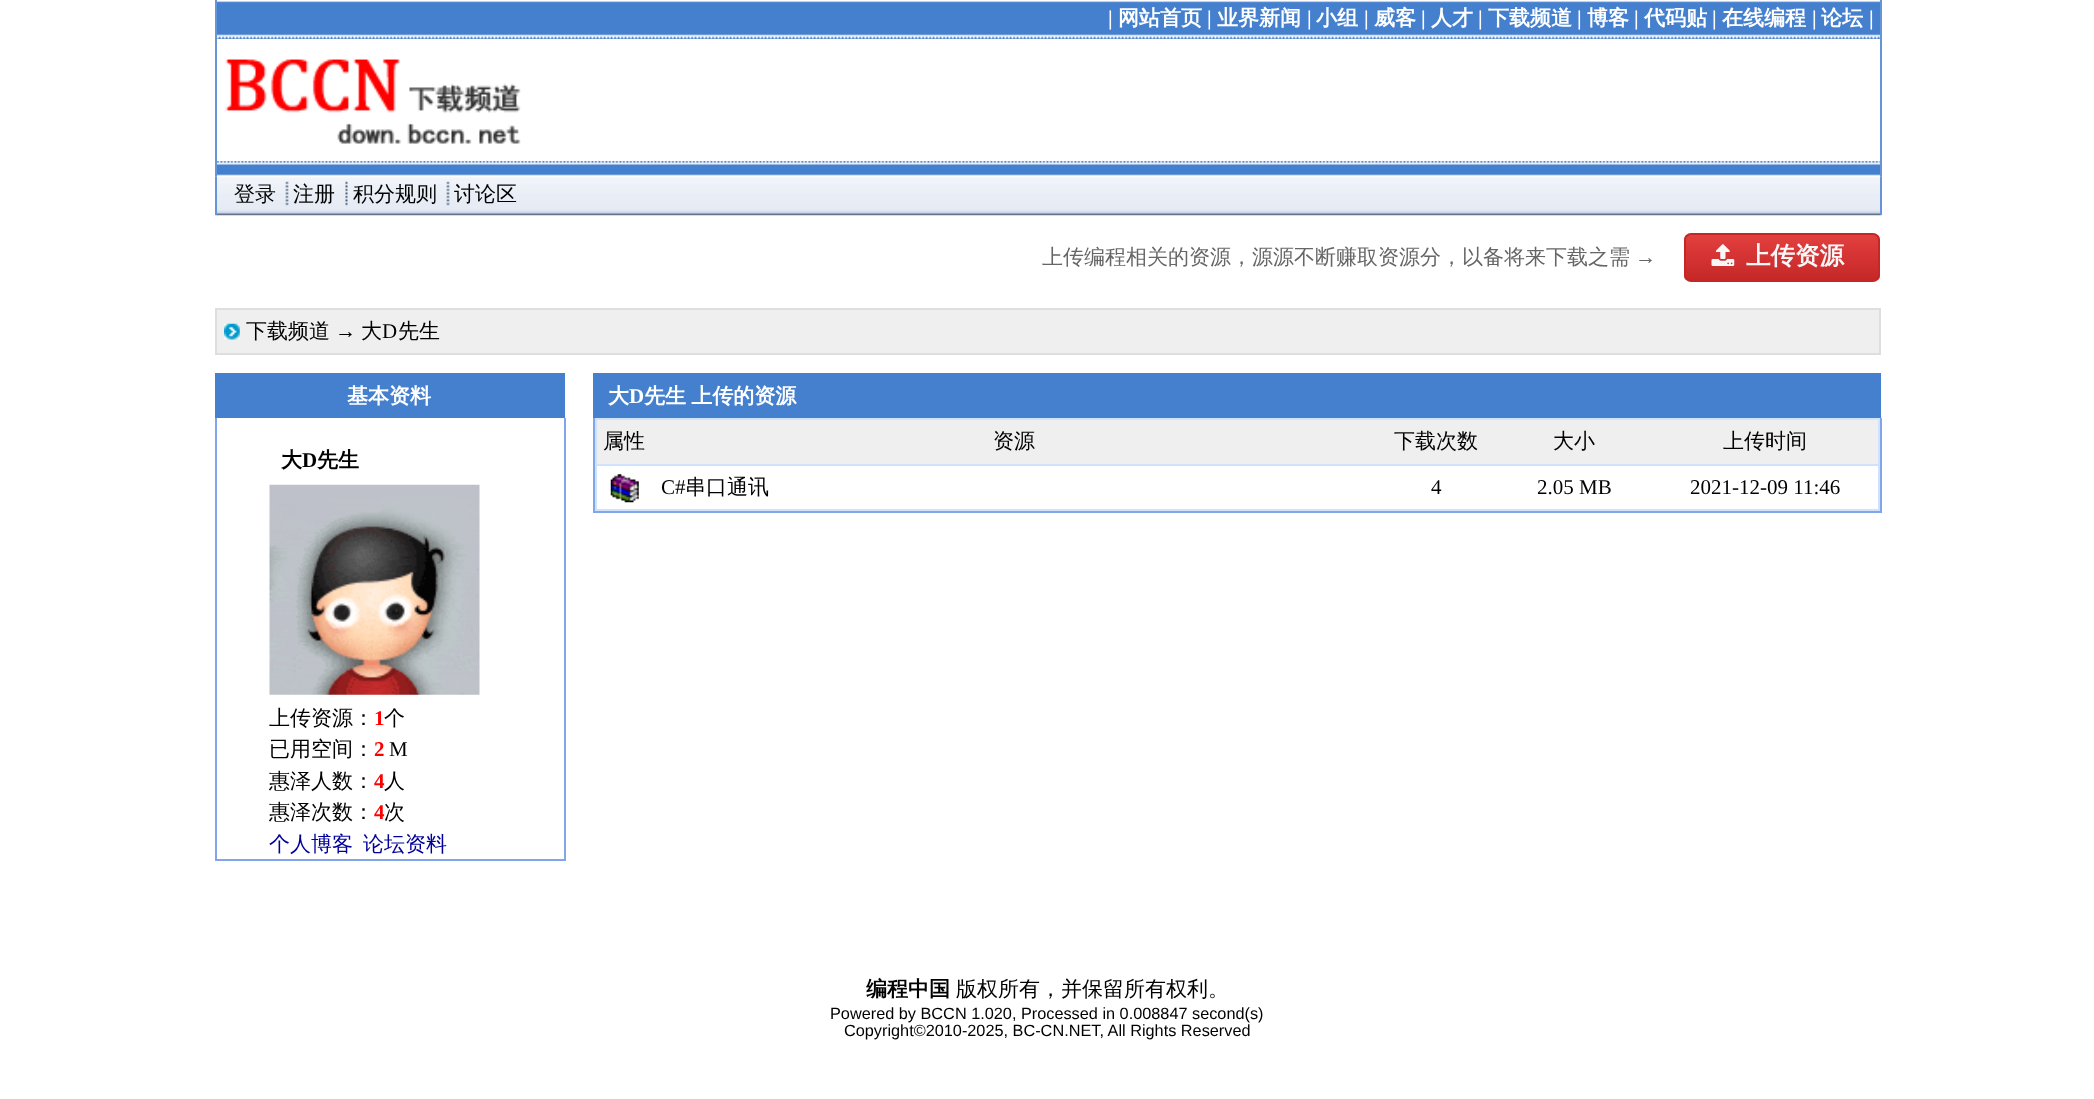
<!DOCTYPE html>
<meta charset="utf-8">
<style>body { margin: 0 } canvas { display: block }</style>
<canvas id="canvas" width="2094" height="1099"></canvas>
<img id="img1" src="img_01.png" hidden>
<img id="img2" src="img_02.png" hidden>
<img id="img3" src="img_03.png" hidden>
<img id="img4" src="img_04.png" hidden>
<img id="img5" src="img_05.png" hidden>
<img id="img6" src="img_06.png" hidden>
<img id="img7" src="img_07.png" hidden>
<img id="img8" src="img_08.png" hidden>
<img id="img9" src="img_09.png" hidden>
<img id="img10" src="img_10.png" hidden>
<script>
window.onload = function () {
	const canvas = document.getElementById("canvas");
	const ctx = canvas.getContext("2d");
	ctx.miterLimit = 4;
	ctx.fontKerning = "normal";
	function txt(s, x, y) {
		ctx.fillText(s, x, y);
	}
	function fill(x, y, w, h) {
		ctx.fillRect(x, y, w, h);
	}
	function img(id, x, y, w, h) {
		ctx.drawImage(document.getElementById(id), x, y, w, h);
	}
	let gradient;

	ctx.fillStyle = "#FFFFFF";
	fill(0, 0, 2094, 1099);
	ctx.fillStyle = "#4580CF";
	fill(217, 38, 1663, 1);
	img("img1", 217, 0, 1663, 39);
	ctx.fillStyle = "#6595D6";
	fill(1880, 0, 2, 177);
	fill(215, 0, 2, 177);
	img("img2", 225, 59, 296, 85);
	img("img3", 217, 161, 1663, 15);
	img("img4", 215, 176, 1667, 40);
	fill(1880, 177, 2, 38);
	fill(215, 177, 2, 38);
	img("img5", 285, 181, 4, 25);
	img("img6", 345, 181, 3, 25);
	img("img5", 446, 181, 4, 25);
	ctx.save();
	ctx.beginPath();
	ctx.roundRect(1684, 233, 196, 49, 7);
	ctx.clip();
	gradient = ctx.createLinearGradient(1782, 235, 1782, 280);
	gradient.addColorStop(0, "#E33F3F");
	gradient.addColorStop(1, "#C52727");
	ctx.fillStyle = gradient;
	fill(1684, 235, 196, 45);
	ctx.restore();
	ctx.beginPath();
	ctx.roundRect(1685, 234, 194, 47, 6);
	ctx.strokeStyle = "#C52727";
	ctx.lineWidth = 2;
	ctx.stroke();
	img("img7", 1711, 244, 24, 22);
	ctx.fillStyle = "#EFEFEF";
	fill(217, 310, 1662, 43);
	img("img8", 224, 323, 16, 17);
	ctx.strokeStyle = "#DEDEDE";
	ctx.strokeRect(216, 309, 1664, 45);
	ctx.fillStyle = "#4580CF";
	fill(215, 373, 350, 45);
	ctx.fillStyle = "#80A5EA";
	fill(564, 418, 2, 443);
	fill(215, 859, 350, 2);
	fill(215, 418, 2, 443);
	img("img9", 269, 484, 211, 211);
	ctx.fillStyle = "#4580CF";
	fill(593, 373, 1288, 45);
	ctx.fillStyle = "#80A5EA";
	fill(1880, 418, 2, 95);
	fill(593, 511, 1288, 2);
	fill(593, 418, 2, 95);
	ctx.fillStyle = "#CFE2FE";
	fill(595, 418, 1285, 93);
	ctx.fillStyle = "#EFEFEF";
	fill(597, 420, 1281, 44);
	ctx.fillStyle = "#FFFFFF";
	fill(597, 466, 1281, 43);
	img("img10", 610, 474, 29, 29);
	ctx.font = "bold 21px Liberation Serif";
	txt("|", 1108, 25);
	ctx.font = "bold 21px WenQuanYi Zen Hei";
	txt("网站首页", 1118, 25);
	ctx.font = "bold 21px Liberation Serif";
	txt("|", 1207, 25);
	ctx.font = "bold 21px WenQuanYi Zen Hei";
	txt("业界新闻", 1217, 25);
	ctx.font = "bold 21px Liberation Serif";
	txt("|", 1307, 25);
	ctx.font = "bold 21px WenQuanYi Zen Hei";
	txt("小组", 1316, 25);
	ctx.font = "bold 21px Liberation Serif";
	txt("|", 1364, 25);
	ctx.font = "bold 21px WenQuanYi Zen Hei";
	txt("威客", 1374, 25);
	ctx.font = "bold 21px Liberation Serif";
	txt("|", 1421, 25);
	ctx.font = "bold 21px WenQuanYi Zen Hei";
	txt("人才", 1431, 25);
	ctx.font = "bold 21px Liberation Serif";
	txt("|", 1478, 25);
	ctx.font = "bold 21px WenQuanYi Zen Hei";
	txt("下载频道", 1488, 25);
	ctx.font = "bold 21px Liberation Serif";
	txt("|", 1577, 25);
	ctx.font = "bold 21px WenQuanYi Zen Hei";
	txt("博客", 1587, 25);
	ctx.font = "bold 21px Liberation Serif";
	txt("|", 1634, 25);
	ctx.font = "bold 21px WenQuanYi Zen Hei";
	txt("代码贴", 1644, 25);
	ctx.font = "bold 21px Liberation Serif";
	txt("|", 1712, 25);
	ctx.font = "bold 21px WenQuanYi Zen Hei";
	txt("在线编程", 1722, 25);
	ctx.font = "bold 21px Liberation Serif";
	txt("|", 1812, 25);
	ctx.font = "bold 21px WenQuanYi Zen Hei";
	txt("论坛", 1821, 25);
	ctx.font = "bold 21px Liberation Serif";
	txt("|", 1869, 25);
	ctx.font = "500 21px WenQuanYi Zen Hei";
	ctx.fillStyle = "#000000";
	txt("登录", 234, 201);
	txt("注册", 293, 201);
	txt("积分规则", 353, 201);
	txt("讨论区", 454, 201);
	ctx.fillStyle = "#666666";
	txt("上传编程相关的资源，源源不断赚取资源分，以备将来下载之需", 1042, 264);
	ctx.font = "21px Liberation Serif";
	txt("→", 1635, 264);
	ctx.font = "bold 24.5px WenQuanYi Zen Hei";
	ctx.fillStyle = "#F7F7F7";
	txt("上传资源", 1746, 264);
	ctx.font = "500 21px WenQuanYi Zen Hei";
	ctx.fillStyle = "#000000";
	txt("下载频道", 246, 338);
	ctx.font = "21px Liberation Serif";
	txt("→", 335, 338);
	ctx.font = "500 21px WenQuanYi Zen Hei";
	txt("大", 361, 338);
	ctx.font = "21px Liberation Serif";
	txt("D", 382, 338);
	ctx.font = "500 21px WenQuanYi Zen Hei";
	txt("先生", 398, 338);
	ctx.font = "bold 21px WenQuanYi Zen Hei";
	ctx.fillStyle = "#FFFFFF";
	txt("基本资料", 347, 403);
	ctx.fillStyle = "#000000";
	txt("大", 281, 467);
	ctx.font = "bold 21px Liberation Serif";
	txt("D", 302, 467);
	ctx.font = "bold 21px WenQuanYi Zen Hei";
	txt("先生", 317, 467);
	ctx.font = "500 21px WenQuanYi Zen Hei";
	txt("上传资源：", 269, 725);
	ctx.font = "bold 21px Liberation Serif";
	ctx.fillStyle = "#FF0000";
	txt("1", 374, 725);
	ctx.font = "500 21px WenQuanYi Zen Hei";
	ctx.fillStyle = "#000000";
	txt("个", 384, 725);
	txt("已用空间：", 269, 756);
	ctx.font = "bold 21px Liberation Serif";
	ctx.fillStyle = "#FF0000";
	txt("2", 374, 756);
	ctx.font = "21px Liberation Serif";
	ctx.fillStyle = "#000000";
	txt("M", 389, 756);
	ctx.font = "500 21px WenQuanYi Zen Hei";
	txt("惠泽人数：", 269, 788);
	ctx.font = "bold 21px Liberation Serif";
	ctx.fillStyle = "#FF0000";
	txt("4", 374, 788);
	ctx.font = "500 21px WenQuanYi Zen Hei";
	ctx.fillStyle = "#000000";
	txt("人", 384, 788);
	txt("惠泽次数：", 269, 819);
	ctx.font = "bold 21px Liberation Serif";
	ctx.fillStyle = "#FF0000";
	txt("4", 374, 819);
	ctx.font = "500 21px WenQuanYi Zen Hei";
	ctx.fillStyle = "#000000";
	txt("次", 384, 819);
	ctx.fillStyle = "#000099";
	txt("个人博客", 269, 851);
	txt("论坛资料", 363, 851);
	ctx.font = "bold 21px WenQuanYi Zen Hei";
	ctx.fillStyle = "#FFFFFF";
	txt("大", 608, 403);
	ctx.font = "bold 21px Liberation Serif";
	txt("D", 629, 403);
	ctx.wordSpacing = "-1px";
	ctx.font = "bold 21px WenQuanYi Zen Hei";
	txt("先生 上传的资源", 644, 403);
	ctx.wordSpacing = "0px";
	ctx.font = "500 21px WenQuanYi Zen Hei";
	ctx.fillStyle = "#000000";
	txt("属性", 603, 448);
	txt("资源", 993, 448);
	txt("下载次数", 1394, 448);
	txt("大小", 1553, 448);
	txt("上传时间", 1723, 448);
	ctx.font = "21px Liberation Serif";
	txt("C#", 661, 494);
	ctx.font = "500 21px WenQuanYi Zen Hei";
	txt("串口通讯", 685, 494);
	ctx.font = "21px Liberation Serif";
	txt("4", 1431, 494);
	txt("2.05 MB", 1537, 494);
	txt("2021-12-09 11:46", 1690, 494);
	ctx.font = "bold 21px WenQuanYi Zen Hei";
	txt("编程中国", 866, 996);
	ctx.font = "500 21px WenQuanYi Zen Hei";
	txt("版权所有，并保留所有权利。", 956, 996);
	ctx.font = "16.3px Liberation Sans";
	txt("Powered by BCCN 1.020, Processed in 0.008847 second(s)", 830, 1019);
	txt("Copyright©2010-2025, BC-CN.NET, All Rights Reserved", 844, 1036);
};
</script>
